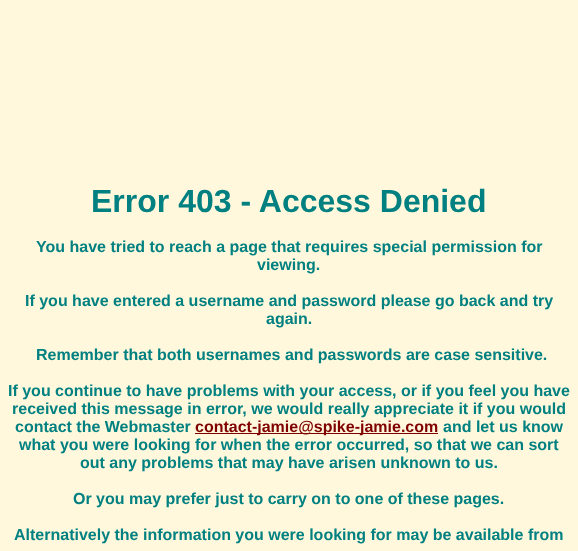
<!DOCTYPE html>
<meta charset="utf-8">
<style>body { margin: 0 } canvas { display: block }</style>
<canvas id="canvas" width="578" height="551"></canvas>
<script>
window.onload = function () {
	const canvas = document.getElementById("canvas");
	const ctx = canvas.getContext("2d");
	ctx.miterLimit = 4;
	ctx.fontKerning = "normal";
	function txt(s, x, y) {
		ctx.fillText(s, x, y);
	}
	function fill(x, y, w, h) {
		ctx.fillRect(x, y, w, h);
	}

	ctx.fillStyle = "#FFF8DC";
	fill(0, 0, 578, 551);
	ctx.fillStyle = "#800000";
	fill(195, 433, 243, 1);
	ctx.font = "bold 32px Liberation Sans";
	ctx.fillStyle = "#008080";
	txt("Error 403 - Access Denied", 91, 212);
	ctx.font = "bold 16px Liberation Sans";
	txt("You have tried to reach a page that requires special permission for", 36, 252);
	txt("viewing.", 257, 270);
	txt("If you have entered a username and password please go back and try", 25, 306);
	txt("again.", 266, 324);
	txt("Remember that both usernames and passwords are case sensitive.", 36, 360);
	txt("If you continue to have problems with your access, or if you feel you have", 8, 396);
	txt("received this message in error, we would really appreciate it if you would", 12, 414);
	txt("contact the Webmaster", 15, 432);
	ctx.fillStyle = "#800000";
	txt("contact-jamie@spike-jamie.com", 195, 432);
	ctx.fillStyle = "#008080";
	txt("and let us know", 443, 432);
	txt("what you were looking for when the error occurred, so that we can sort", 19, 450);
	txt("out any problems that may have arisen unknown to us.", 80, 468);
	txt("Or you may prefer just to carry on to one of these pages.", 73, 504);
	txt("Alternatively the information you were looking for may be available from", 14, 540);
};
</script>
